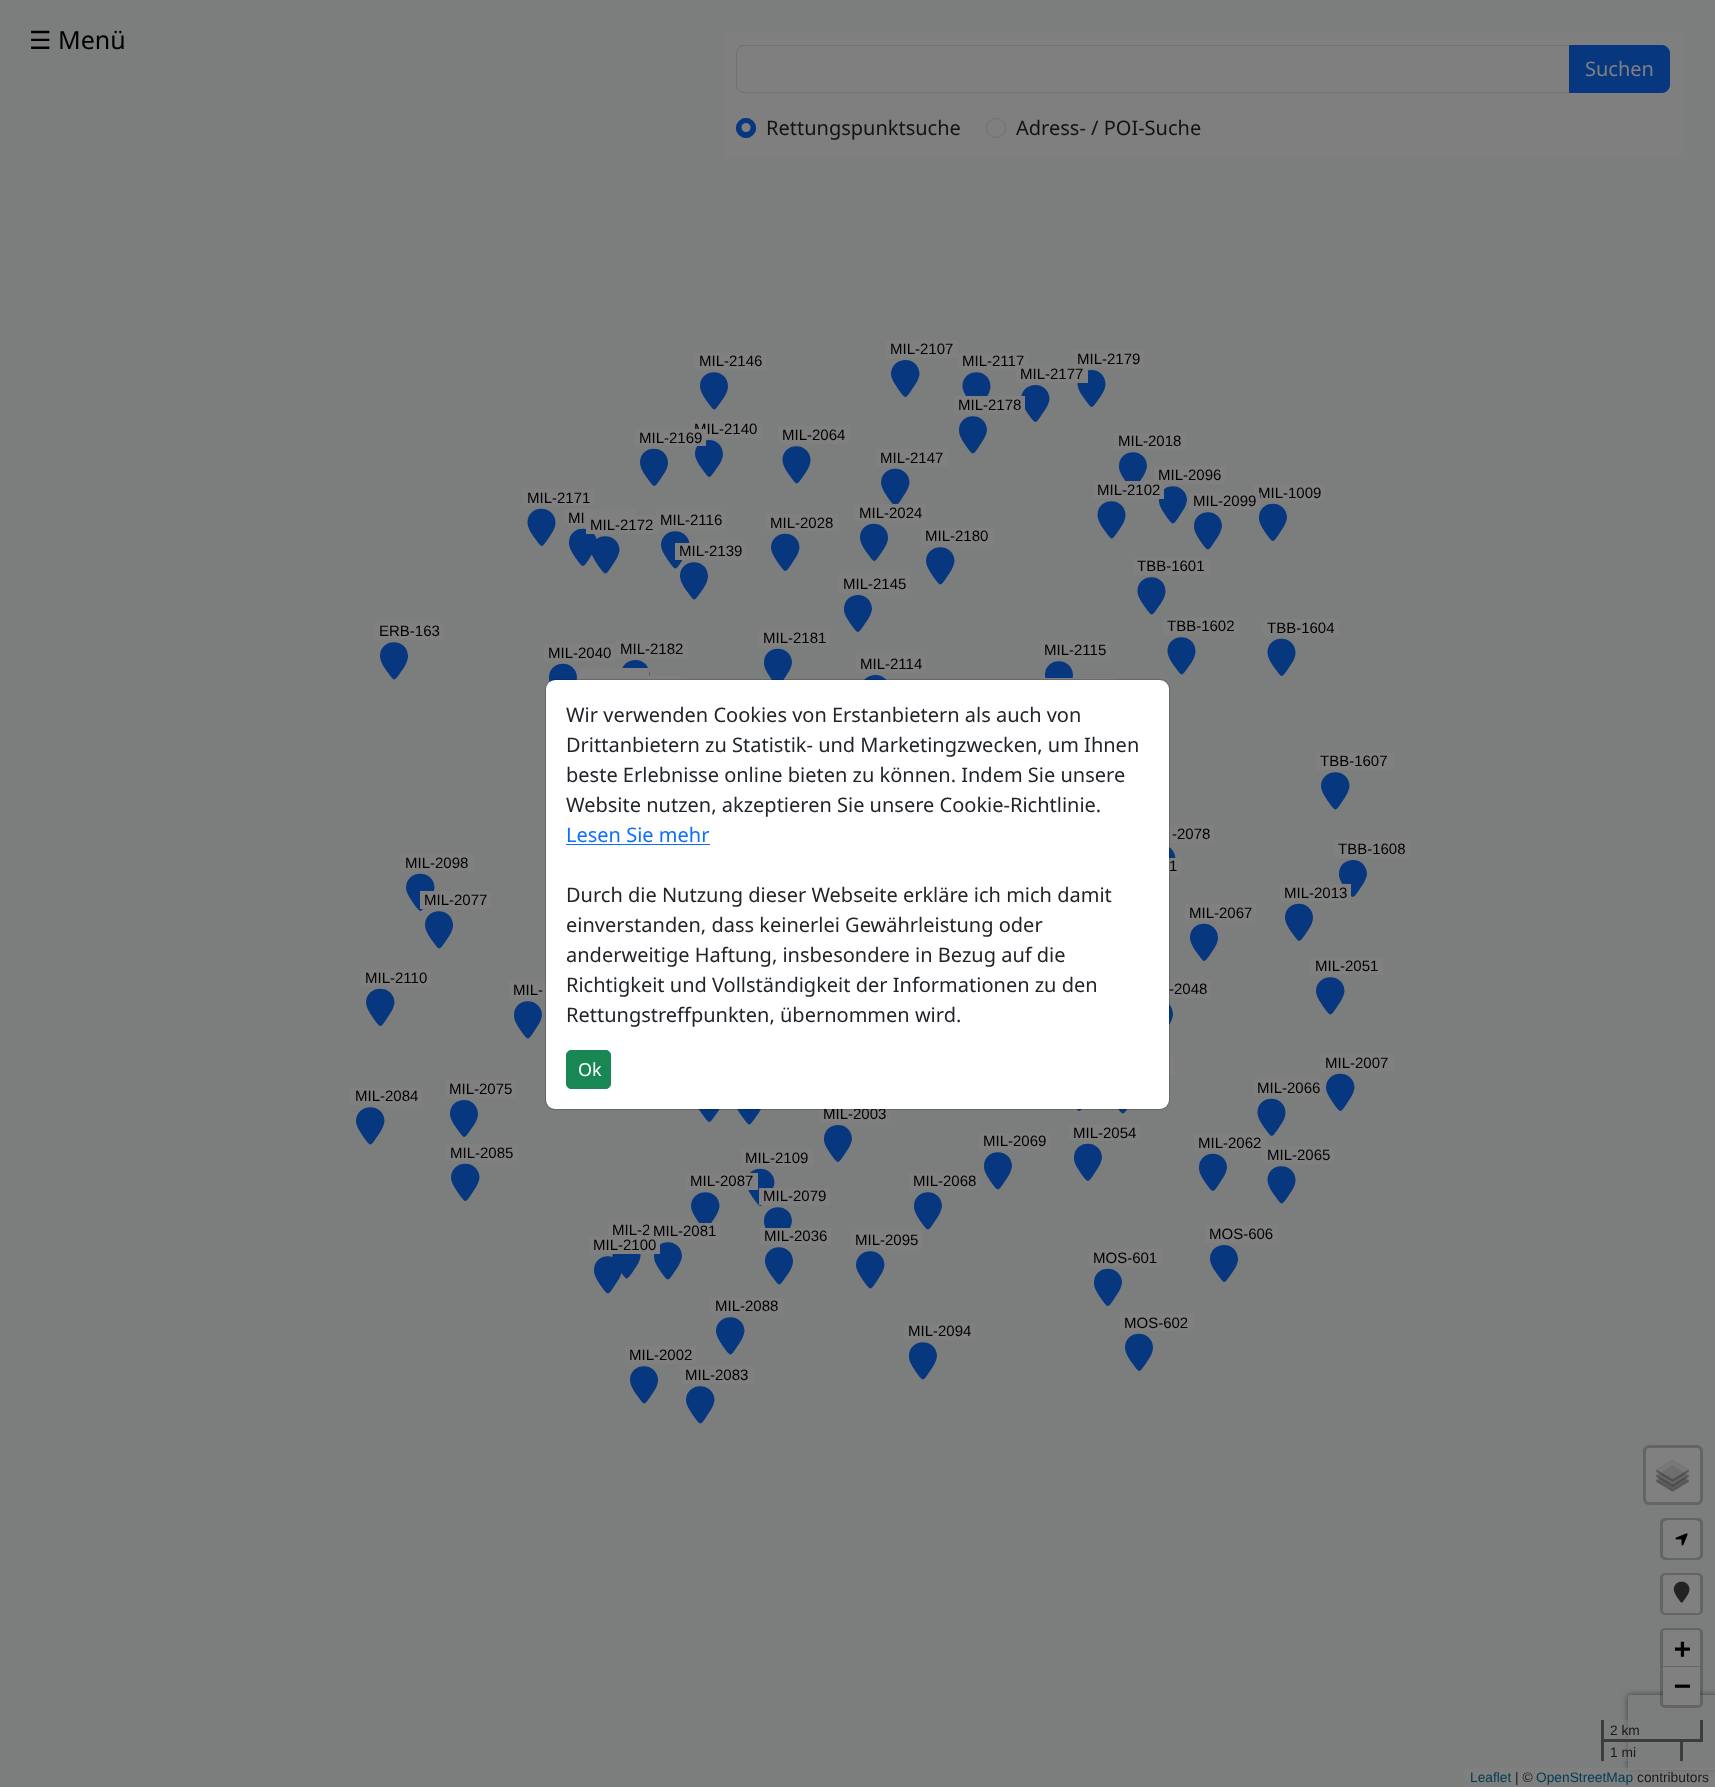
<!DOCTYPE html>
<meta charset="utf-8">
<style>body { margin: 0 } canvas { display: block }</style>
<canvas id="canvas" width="1715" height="1787"></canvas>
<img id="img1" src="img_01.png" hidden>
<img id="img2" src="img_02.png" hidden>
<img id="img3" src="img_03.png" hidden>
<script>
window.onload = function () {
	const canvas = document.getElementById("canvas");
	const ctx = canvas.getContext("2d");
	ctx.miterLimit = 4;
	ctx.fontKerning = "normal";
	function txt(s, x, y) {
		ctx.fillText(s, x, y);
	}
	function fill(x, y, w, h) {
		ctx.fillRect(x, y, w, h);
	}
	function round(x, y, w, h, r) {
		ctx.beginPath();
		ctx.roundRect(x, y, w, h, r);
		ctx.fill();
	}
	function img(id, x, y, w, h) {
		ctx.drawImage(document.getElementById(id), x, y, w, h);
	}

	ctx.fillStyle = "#7C7D7D";
	fill(0, 0, 1715, 1787);
	ctx.fillStyle = "#7F7F7F";
	round(724, 33, 959, 125, 6);
	ctx.beginPath();
	ctx.roundRect(736.5, 45.5, 833, 47, [7.5, 0, 0, 7.5]);
	ctx.strokeStyle = "#6F7173";
	ctx.stroke();
	ctx.fillStyle = "#07377F";
	ctx.beginPath();
	ctx.roundRect(1569.5, 45.5, 100, 47, [0, 7.5, 7.5, 0]);
	ctx.fill();
	ctx.strokeStyle = "#07377F";
	ctx.stroke();
	ctx.beginPath();
	ctx.arc(746, 128, 10, 0, Math.PI * 2);
	ctx.fill();
	ctx.fillStyle = "#808080";
	ctx.beginPath();
	ctx.arc(746, 127.5, 4.5, 0, Math.PI * 2);
	ctx.fill();
	ctx.beginPath();
	ctx.arc(746, 128, 9.5, 0, Math.PI * 2);
	ctx.stroke();
	ctx.beginPath();
	ctx.arc(996, 128, 9.5, 0, Math.PI * 2);
	ctx.strokeStyle = "#6F7173";
	ctx.stroke();
	fill(886, 340, 72, 18);
	ctx.fillStyle = "#07377F";
	ctx.beginPath();
	ctx.moveTo(919.5, 374);
	ctx.bezierCurveTo(919, 379, 915.5, 384.5, 912.5, 388.5);
	ctx.bezierCurveTo(905.5, 399, 906, 400, 898.5, 389.5);
	ctx.bezierCurveTo(896, 385.5, 891, 379, 891, 374);
	ctx.bezierCurveTo(891.5, 355.5, 919, 355, 919.5, 374);
	ctx.closePath();
	ctx.fill();
	ctx.fillStyle = "#808080";
	fill(695, 353, 71, 17);
	ctx.fillStyle = "#07377F";
	ctx.beginPath();
	ctx.moveTo(728, 386);
	ctx.bezierCurveTo(728, 391.5, 724.5, 397, 721.5, 401);
	ctx.bezierCurveTo(714, 411.5, 715, 412.5, 707.5, 402);
	ctx.bezierCurveTo(704.5, 398, 700, 391.5, 700, 386);
	ctx.bezierCurveTo(700, 368, 727.5, 367.5, 728, 386);
	ctx.closePath();
	ctx.fill();
	ctx.fillStyle = "#808080";
	fill(958, 353, 70, 17);
	ctx.fillStyle = "#07377F";
	ctx.beginPath();
	ctx.moveTo(990.5, 386);
	ctx.bezierCurveTo(990.5, 391.5, 987, 397, 984, 401);
	ctx.bezierCurveTo(976.5, 411.5, 977.5, 412.5, 970, 402);
	ctx.bezierCurveTo(967, 398, 962.5, 391.5, 962.5, 386);
	ctx.bezierCurveTo(962.5, 368, 990, 367.5, 990.5, 386);
	ctx.closePath();
	ctx.fill();
	ctx.fillStyle = "#808080";
	fill(1073, 350, 71, 18);
	ctx.fillStyle = "#07377F";
	ctx.beginPath();
	ctx.moveTo(1105.5, 384);
	ctx.bezierCurveTo(1105.5, 389, 1102, 394.5, 1099, 398.5);
	ctx.bezierCurveTo(1091.5, 409, 1092.5, 410, 1085, 399.5);
	ctx.bezierCurveTo(1082, 395.5, 1077.5, 389, 1077.5, 384);
	ctx.bezierCurveTo(1077.5, 365.5, 1105, 365, 1105.5, 384);
	ctx.closePath();
	ctx.fill();
	ctx.beginPath();
	ctx.moveTo(1049.5, 399);
	ctx.bezierCurveTo(1049, 404, 1045.5, 409.5, 1042.5, 413.5);
	ctx.bezierCurveTo(1035.5, 424, 1036, 425, 1028.5, 414.5);
	ctx.bezierCurveTo(1026, 410.5, 1021, 404, 1021, 399);
	ctx.bezierCurveTo(1021.5, 380.5, 1049, 380, 1049.5, 399);
	ctx.closePath();
	ctx.fill();
	ctx.fillStyle = "#808080";
	fill(954, 396, 71, 18);
	ctx.fillStyle = "#07377F";
	ctx.beginPath();
	ctx.moveTo(987, 430);
	ctx.bezierCurveTo(986.5, 435.5, 983, 440.5, 980, 445);
	ctx.bezierCurveTo(973, 455.5, 973.5, 456.5, 966, 446);
	ctx.bezierCurveTo(963.5, 442, 958.5, 435.5, 959, 430);
	ctx.bezierCurveTo(959, 411.5, 986.5, 411.5, 987, 430);
	ctx.closePath();
	ctx.fill();
	ctx.beginPath();
	ctx.moveTo(668, 462.5);
	ctx.bezierCurveTo(668, 468, 664.5, 473, 661.5, 477.5);
	ctx.bezierCurveTo(654, 488, 655, 489, 647.5, 478.5);
	ctx.bezierCurveTo(644.5, 474.5, 640, 468, 640, 462.5);
	ctx.bezierCurveTo(640, 444, 667.5, 444, 668, 462.5);
	ctx.closePath();
	ctx.fill();
	ctx.fillStyle = "#808080";
	fill(690, 420, 71, 18);
	ctx.fillStyle = "#07377F";
	ctx.beginPath();
	ctx.moveTo(723, 454);
	ctx.bezierCurveTo(723, 459, 719.5, 464.5, 716.5, 468.5);
	ctx.bezierCurveTo(709, 479, 710, 480, 702.5, 469.5);
	ctx.bezierCurveTo(699.5, 465.5, 695, 459, 695, 454);
	ctx.bezierCurveTo(695, 435.5, 722.5, 435, 723, 454);
	ctx.closePath();
	ctx.fill();
	ctx.fillStyle = "#808080";
	fill(778, 426, 71, 18);
	ctx.fillStyle = "#07377F";
	ctx.beginPath();
	ctx.moveTo(810.5, 460);
	ctx.bezierCurveTo(810.5, 465.5, 807, 470.5, 804, 475);
	ctx.bezierCurveTo(796.5, 485.5, 797.5, 486.5, 790, 476);
	ctx.bezierCurveTo(787, 472, 782.5, 465.5, 782.5, 460);
	ctx.bezierCurveTo(782.5, 441.5, 810, 441.5, 810.5, 460);
	ctx.closePath();
	ctx.fill();
	ctx.fillStyle = "#808080";
	fill(1114, 433, 71, 17);
	ctx.fillStyle = "#07377F";
	ctx.beginPath();
	ctx.moveTo(1147, 466);
	ctx.bezierCurveTo(1146.5, 471.5, 1143, 477, 1140, 481);
	ctx.bezierCurveTo(1133, 491.5, 1133.5, 492.5, 1126, 482);
	ctx.bezierCurveTo(1123.5, 478, 1118.5, 471.5, 1119, 466);
	ctx.bezierCurveTo(1119, 448, 1146.5, 447.5, 1147, 466);
	ctx.closePath();
	ctx.fill();
	ctx.fillStyle = "#808080";
	fill(876, 449, 72, 17);
	ctx.fillStyle = "#07377F";
	ctx.beginPath();
	ctx.moveTo(909.5, 482.5);
	ctx.bezierCurveTo(909, 488, 905.5, 493, 902.5, 497.5);
	ctx.bezierCurveTo(895.5, 508, 896, 509, 888.5, 498.5);
	ctx.bezierCurveTo(886, 494.5, 881, 488, 881, 482.5);
	ctx.bezierCurveTo(881.5, 464, 909, 464, 909.5, 482.5);
	ctx.closePath();
	ctx.fill();
	ctx.fillStyle = "#808080";
	fill(1154, 466, 71, 18);
	ctx.fillStyle = "#07377F";
	ctx.beginPath();
	ctx.moveTo(1187, 500);
	ctx.bezierCurveTo(1186.5, 505.5, 1183, 510.5, 1180, 515);
	ctx.bezierCurveTo(1173, 525.5, 1173.5, 526.5, 1166, 516);
	ctx.bezierCurveTo(1163.5, 512, 1158.5, 505.5, 1159, 500);
	ctx.bezierCurveTo(1159, 481.5, 1186.5, 481.5, 1187, 500);
	ctx.closePath();
	ctx.fill();
	ctx.fillStyle = "#808080";
	fill(523, 489, 71, 17);
	ctx.fillStyle = "#07377F";
	ctx.beginPath();
	ctx.moveTo(555.5, 522.5);
	ctx.bezierCurveTo(555.5, 528, 552, 533, 549, 537.5);
	ctx.bezierCurveTo(541.5, 548, 542.5, 549, 535, 538.5);
	ctx.bezierCurveTo(532, 534.5, 527.5, 528, 527.5, 522.5);
	ctx.bezierCurveTo(527.5, 504, 555, 504, 555.5, 522.5);
	ctx.closePath();
	ctx.fill();
	ctx.fillStyle = "#808080";
	fill(1093, 481, 71, 18);
	ctx.fillStyle = "#07377F";
	ctx.beginPath();
	ctx.moveTo(1125.5, 515);
	ctx.bezierCurveTo(1125.5, 520.5, 1122, 525.5, 1119, 530);
	ctx.bezierCurveTo(1111.5, 540.5, 1112.5, 541.5, 1105, 531);
	ctx.bezierCurveTo(1102, 527, 1097.5, 520.5, 1097.5, 515);
	ctx.bezierCurveTo(1097.5, 496.5, 1125, 496.5, 1125.5, 515);
	ctx.closePath();
	ctx.fill();
	ctx.beginPath();
	ctx.moveTo(1222, 526);
	ctx.bezierCurveTo(1221.5, 531.5, 1218, 537, 1215, 541);
	ctx.bezierCurveTo(1208, 551.5, 1208.5, 552.5, 1201, 542);
	ctx.bezierCurveTo(1198.5, 538, 1193.5, 531.5, 1194, 526);
	ctx.bezierCurveTo(1194, 508, 1221.5, 507.5, 1222, 526);
	ctx.closePath();
	ctx.fill();
	ctx.fillStyle = "#808080";
	fill(1254, 484, 71, 17);
	ctx.fillStyle = "#07377F";
	ctx.beginPath();
	ctx.moveTo(1287, 517.5);
	ctx.bezierCurveTo(1286.5, 523, 1283, 528, 1280, 532.5);
	ctx.bezierCurveTo(1273, 543, 1273.5, 544, 1266, 533.5);
	ctx.bezierCurveTo(1263.5, 529.5, 1258.5, 523, 1259, 517.5);
	ctx.bezierCurveTo(1259, 499, 1286.5, 499, 1287, 517.5);
	ctx.closePath();
	ctx.fill();
	ctx.fillStyle = "#808080";
	fill(564, 509, 71, 17);
	ctx.fillStyle = "#07377F";
	ctx.beginPath();
	ctx.moveTo(597, 542.5);
	ctx.bezierCurveTo(596.5, 548, 593, 553, 590, 557.5);
	ctx.bezierCurveTo(583, 568, 583.5, 569, 576, 558.5);
	ctx.bezierCurveTo(573.5, 554.5, 568.5, 548, 569, 542.5);
	ctx.bezierCurveTo(569, 524, 596.5, 524, 597, 542.5);
	ctx.closePath();
	ctx.fill();
	ctx.fillStyle = "#808080";
	fill(656, 511, 70, 18);
	fill(586, 516, 72, 18);
	ctx.fillStyle = "#07377F";
	ctx.beginPath();
	ctx.moveTo(619.5, 550);
	ctx.bezierCurveTo(619, 555.5, 615.5, 560.5, 612.5, 565);
	ctx.bezierCurveTo(605.5, 575.5, 606, 576.5, 598.5, 566);
	ctx.bezierCurveTo(596, 562, 591, 555.5, 591, 550);
	ctx.bezierCurveTo(591.5, 531.5, 619, 531.5, 619.5, 550);
	ctx.closePath();
	ctx.fill();
	ctx.beginPath();
	ctx.moveTo(689.5, 545);
	ctx.bezierCurveTo(689, 550.5, 685.5, 555.5, 682.5, 560);
	ctx.bezierCurveTo(675.5, 570.5, 676, 571.5, 668.5, 561);
	ctx.bezierCurveTo(666, 557, 661, 550.5, 661, 545);
	ctx.bezierCurveTo(661.5, 526.5, 689, 526.5, 689.5, 545);
	ctx.closePath();
	ctx.fill();
	ctx.fillStyle = "#808080";
	fill(766, 514, 72, 17);
	ctx.fillStyle = "#07377F";
	ctx.beginPath();
	ctx.moveTo(799.5, 547.5);
	ctx.bezierCurveTo(799, 553, 795.5, 558, 792.5, 562.5);
	ctx.bezierCurveTo(785.5, 573, 786, 574, 778.5, 563.5);
	ctx.bezierCurveTo(776, 559.5, 771, 553, 771, 547.5);
	ctx.bezierCurveTo(771.5, 529, 799, 529, 799.5, 547.5);
	ctx.closePath();
	ctx.fill();
	ctx.fillStyle = "#808080";
	fill(855, 504, 71, 17);
	ctx.fillStyle = "#07377F";
	ctx.beginPath();
	ctx.moveTo(888, 537.5);
	ctx.bezierCurveTo(888, 543, 884.5, 548, 881.5, 552.5);
	ctx.bezierCurveTo(874, 563, 875, 564, 867.5, 553.5);
	ctx.bezierCurveTo(864.5, 549.5, 860, 543, 860, 537.5);
	ctx.bezierCurveTo(860, 519, 887.5, 519, 888, 537.5);
	ctx.closePath();
	ctx.fill();
	ctx.fillStyle = "#808080";
	fill(921, 528, 72, 17);
	ctx.fillStyle = "#07377F";
	ctx.beginPath();
	ctx.moveTo(954.5, 561);
	ctx.bezierCurveTo(954, 566.5, 950.5, 572, 947.5, 576);
	ctx.bezierCurveTo(940.5, 586.5, 941, 587.5, 933.5, 577);
	ctx.bezierCurveTo(931, 573, 926, 566.5, 926, 561);
	ctx.bezierCurveTo(926.5, 543, 954, 542.5, 954.5, 561);
	ctx.closePath();
	ctx.fill();
	ctx.fillStyle = "#808080";
	fill(675, 543, 71, 17);
	ctx.fillStyle = "#07377F";
	ctx.beginPath();
	ctx.moveTo(708, 576);
	ctx.bezierCurveTo(708, 581.5, 704.5, 587, 701.5, 591);
	ctx.bezierCurveTo(694, 601.5, 695, 602.5, 687.5, 592);
	ctx.bezierCurveTo(684.5, 588, 680, 581.5, 680, 576);
	ctx.bezierCurveTo(680, 558, 707.5, 557.5, 708, 576);
	ctx.closePath();
	ctx.fill();
	ctx.fillStyle = "#808080";
	fill(1133, 558, 76, 17);
	ctx.fillStyle = "#07377F";
	ctx.beginPath();
	ctx.moveTo(1165.5, 591);
	ctx.bezierCurveTo(1165.5, 596.5, 1162, 602, 1159, 606);
	ctx.bezierCurveTo(1151.5, 616.5, 1152.5, 617.5, 1145, 607);
	ctx.bezierCurveTo(1142, 603, 1137.5, 596.5, 1137.5, 591);
	ctx.bezierCurveTo(1137.5, 573, 1165, 572.5, 1165.5, 591);
	ctx.closePath();
	ctx.fill();
	ctx.fillStyle = "#808080";
	fill(839, 575, 71, 18);
	ctx.fillStyle = "#07377F";
	ctx.beginPath();
	ctx.moveTo(872, 609);
	ctx.bezierCurveTo(871.5, 614, 868, 619.5, 865, 623.5);
	ctx.bezierCurveTo(858, 634, 858.5, 635, 851, 624.5);
	ctx.bezierCurveTo(848.5, 620.5, 843.5, 614, 844, 609);
	ctx.bezierCurveTo(844, 590.5, 871.5, 590, 872, 609);
	ctx.closePath();
	ctx.fill();
	ctx.fillStyle = "#808080";
	fill(375, 623, 69, 17);
	ctx.fillStyle = "#07377F";
	ctx.beginPath();
	ctx.moveTo(408, 656);
	ctx.bezierCurveTo(408, 661.5, 404.5, 667, 401.5, 671);
	ctx.bezierCurveTo(394, 681.5, 395, 682.5, 387.5, 672);
	ctx.bezierCurveTo(384.5, 668, 380, 661.5, 380, 656);
	ctx.bezierCurveTo(380, 638, 407.5, 637.5, 408, 656);
	ctx.closePath();
	ctx.fill();
	ctx.fillStyle = "#808080";
	fill(759, 629, 71, 17);
	ctx.fillStyle = "#07377F";
	ctx.beginPath();
	ctx.moveTo(792, 662.5);
	ctx.bezierCurveTo(791.5, 668, 788, 673, 785, 677.5);
	ctx.bezierCurveTo(778, 688, 778.5, 689, 771, 678.5);
	ctx.bezierCurveTo(768.5, 674.5, 763.5, 668, 764, 662.5);
	ctx.bezierCurveTo(764, 644, 791.5, 644, 792, 662.5);
	ctx.closePath();
	ctx.fill();
	ctx.fillStyle = "#808080";
	fill(1163, 618, 76, 17);
	ctx.fillStyle = "#07377F";
	ctx.beginPath();
	ctx.moveTo(1195.5, 651);
	ctx.bezierCurveTo(1195.5, 656.5, 1192, 662, 1189, 666);
	ctx.bezierCurveTo(1181.5, 676.5, 1182.5, 677.5, 1175, 667);
	ctx.bezierCurveTo(1172, 663, 1167.5, 656.5, 1167.5, 651);
	ctx.bezierCurveTo(1167.5, 633, 1195, 632.5, 1195.5, 651);
	ctx.closePath();
	ctx.fill();
	ctx.fillStyle = "#808080";
	fill(1263, 619, 76, 17);
	ctx.fillStyle = "#07377F";
	ctx.beginPath();
	ctx.moveTo(1295.5, 652.5);
	ctx.bezierCurveTo(1295.5, 658, 1292, 663, 1289, 667.5);
	ctx.bezierCurveTo(1281.5, 678, 1282.5, 679, 1275, 668.5);
	ctx.bezierCurveTo(1272, 664.5, 1267.5, 658, 1267.5, 652.5);
	ctx.bezierCurveTo(1267.5, 634, 1295, 634, 1295.5, 652.5);
	ctx.closePath();
	ctx.fill();
	ctx.fillStyle = "#808080";
	fill(544, 644, 71, 17);
	ctx.fillStyle = "#07377F";
	ctx.beginPath();
	ctx.moveTo(577, 677.5);
	ctx.bezierCurveTo(576.5, 683, 573, 688, 570, 692.5);
	ctx.bezierCurveTo(563, 703, 563.5, 704, 556, 693.5);
	ctx.bezierCurveTo(553.5, 689.5, 548.5, 683, 549, 677.5);
	ctx.bezierCurveTo(549, 659, 576.5, 659, 577, 677.5);
	ctx.closePath();
	ctx.fill();
	ctx.fillStyle = "#808080";
	fill(616, 640, 72, 18);
	ctx.fillStyle = "#07377F";
	ctx.beginPath();
	ctx.moveTo(649.5, 674);
	ctx.bezierCurveTo(649, 679, 645.5, 684.5, 642.5, 688.5);
	ctx.bezierCurveTo(635.5, 699, 636, 700, 628.5, 689.5);
	ctx.bezierCurveTo(626, 685.5, 621, 679, 621, 674);
	ctx.bezierCurveTo(621.5, 655.5, 649, 655, 649.5, 674);
	ctx.closePath();
	ctx.fill();
	ctx.fillStyle = "#808080";
	fill(1040, 641, 70, 18);
	ctx.fillStyle = "#07377F";
	ctx.beginPath();
	ctx.moveTo(1073, 675);
	ctx.bezierCurveTo(1073, 680.5, 1069.5, 685.5, 1066.5, 690);
	ctx.bezierCurveTo(1059, 700.5, 1060, 701.5, 1052.5, 691);
	ctx.bezierCurveTo(1049.5, 687, 1045, 680.5, 1045, 675);
	ctx.bezierCurveTo(1045, 656.5, 1072.5, 656.5, 1073, 675);
	ctx.closePath();
	ctx.fill();
	ctx.fillStyle = "#808080";
	fill(856, 655, 70, 18);
	ctx.fillStyle = "#07377F";
	ctx.beginPath();
	ctx.moveTo(889.5, 689);
	ctx.bezierCurveTo(889, 694, 885.5, 699.5, 882.5, 703.5);
	ctx.bezierCurveTo(875.5, 714, 876, 715, 868.5, 704.5);
	ctx.bezierCurveTo(866, 700.5, 861, 694, 861, 689);
	ctx.bezierCurveTo(861.5, 670.5, 889, 670, 889.5, 689);
	ctx.closePath();
	ctx.fill();
	ctx.fillStyle = "#808080";
	fill(578, 668, 71, 12);
	fill(649, 676, 32, 4);
	fill(1040, 678, 76, 2);
	fill(1316, 753, 77, 17);
	ctx.fillStyle = "#07377F";
	ctx.beginPath();
	ctx.moveTo(1349.5, 786);
	ctx.bezierCurveTo(1349, 791.5, 1345.5, 797, 1342.5, 801);
	ctx.bezierCurveTo(1335.5, 811.5, 1336, 812.5, 1328.5, 802);
	ctx.bezierCurveTo(1326, 798, 1321, 791.5, 1321, 786);
	ctx.bezierCurveTo(1321.5, 768, 1349, 767.5, 1349.5, 786);
	ctx.closePath();
	ctx.fill();
	ctx.fillStyle = "#808080";
	fill(1169, 825, 45, 18);
	ctx.fillStyle = "#07377F";
	ctx.beginPath();
	ctx.moveTo(1175.5, 859);
	ctx.bezierCurveTo(1175.5, 864, 1172, 869.5, 1169, 873.5);
	ctx.bezierCurveTo(1161.5, 884, 1162.5, 885, 1155, 874.5);
	ctx.bezierCurveTo(1152, 870.5, 1147.5, 864, 1147.5, 859);
	ctx.bezierCurveTo(1147.5, 840.5, 1175, 840, 1175.5, 859);
	ctx.closePath();
	ctx.fill();
	ctx.fillStyle = "#808080";
	fill(1334, 840, 76, 18);
	ctx.fillStyle = "#07377F";
	ctx.beginPath();
	ctx.moveTo(1367, 874);
	ctx.bezierCurveTo(1366.5, 879, 1363, 884.5, 1360, 888.5);
	ctx.bezierCurveTo(1353, 899, 1353.5, 900, 1346, 889.5);
	ctx.bezierCurveTo(1343.5, 885.5, 1338.5, 879, 1339, 874);
	ctx.bezierCurveTo(1339, 855.5, 1366.5, 855, 1367, 874);
	ctx.closePath();
	ctx.fill();
	ctx.fillStyle = "#808080";
	fill(401, 854, 72, 17);
	ctx.fillStyle = "#07377F";
	ctx.beginPath();
	ctx.moveTo(434.5, 887.5);
	ctx.bezierCurveTo(434, 893, 430.5, 898, 427.5, 902.5);
	ctx.bezierCurveTo(420.5, 913, 421, 914, 413.5, 903.5);
	ctx.bezierCurveTo(411, 899.5, 406, 893, 406, 887.5);
	ctx.bezierCurveTo(406.5, 869, 434, 869, 434.5, 887.5);
	ctx.closePath();
	ctx.fill();
	ctx.fillStyle = "#808080";
	fill(1169, 858, 12, 17);
	fill(420, 891, 71, 18);
	ctx.fillStyle = "#07377F";
	ctx.beginPath();
	ctx.moveTo(453, 925);
	ctx.bezierCurveTo(453, 930.5, 449.5, 935.5, 446.5, 940);
	ctx.bezierCurveTo(439, 950.5, 440, 951.5, 432.5, 941);
	ctx.bezierCurveTo(429.5, 937, 425, 930.5, 425, 925);
	ctx.bezierCurveTo(425, 906.5, 452.5, 906.5, 453, 925);
	ctx.closePath();
	ctx.fill();
	ctx.fillStyle = "#808080";
	fill(1280, 884, 71, 17);
	ctx.fillStyle = "#07377F";
	ctx.beginPath();
	ctx.moveTo(1313, 917.5);
	ctx.bezierCurveTo(1313, 923, 1309.5, 928, 1306.5, 932.5);
	ctx.bezierCurveTo(1299, 943, 1300, 944, 1292.5, 933.5);
	ctx.bezierCurveTo(1289.5, 929.5, 1285, 923, 1285, 917.5);
	ctx.bezierCurveTo(1285, 899, 1312.5, 899, 1313, 917.5);
	ctx.closePath();
	ctx.fill();
	ctx.fillStyle = "#808080";
	fill(1185, 904, 71, 17);
	ctx.fillStyle = "#07377F";
	ctx.beginPath();
	ctx.moveTo(1218, 937.5);
	ctx.bezierCurveTo(1218, 943, 1214.5, 948, 1211.5, 952.5);
	ctx.bezierCurveTo(1204, 963, 1205, 964, 1197.5, 953.5);
	ctx.bezierCurveTo(1194.5, 949.5, 1190, 943, 1190, 937.5);
	ctx.bezierCurveTo(1190, 919, 1217.5, 919, 1218, 937.5);
	ctx.closePath();
	ctx.fill();
	ctx.fillStyle = "#808080";
	fill(1311, 958, 72, 17);
	ctx.fillStyle = "#07377F";
	ctx.beginPath();
	ctx.moveTo(1344.5, 991);
	ctx.bezierCurveTo(1344, 996.5, 1340.5, 1002, 1337.5, 1006);
	ctx.bezierCurveTo(1330.5, 1016.5, 1331, 1017.5, 1323.5, 1007);
	ctx.bezierCurveTo(1321, 1003, 1316, 996.5, 1316, 991);
	ctx.bezierCurveTo(1316.5, 973, 1344, 972.5, 1344.5, 991);
	ctx.closePath();
	ctx.fill();
	ctx.fillStyle = "#808080";
	fill(361, 969, 70, 17);
	ctx.fillStyle = "#07377F";
	ctx.beginPath();
	ctx.moveTo(394.5, 1002.5);
	ctx.bezierCurveTo(394, 1008, 390.5, 1013, 387.5, 1017.5);
	ctx.bezierCurveTo(380.5, 1028, 381, 1029, 373.5, 1018.5);
	ctx.bezierCurveTo(371, 1014.5, 366, 1008, 366, 1002.5);
	ctx.bezierCurveTo(366.5, 984, 394, 984, 394.5, 1002.5);
	ctx.closePath();
	ctx.fill();
	ctx.fillStyle = "#808080";
	fill(509, 981, 37, 18);
	ctx.fillStyle = "#07377F";
	ctx.beginPath();
	ctx.moveTo(542, 1015);
	ctx.bezierCurveTo(541.5, 1020.5, 538, 1025.5, 535, 1030);
	ctx.bezierCurveTo(528, 1040.5, 528.5, 1041.5, 521, 1031);
	ctx.bezierCurveTo(518.5, 1027, 513.5, 1020.5, 514, 1015);
	ctx.bezierCurveTo(514, 996.5, 541.5, 996.5, 542, 1015);
	ctx.closePath();
	ctx.fill();
	ctx.fillStyle = "#808080";
	fill(1169, 980, 42, 18);
	ctx.fillStyle = "#07377F";
	ctx.beginPath();
	ctx.moveTo(1173, 1014);
	ctx.bezierCurveTo(1173, 1019, 1169.5, 1024.5, 1166.5, 1028.5);
	ctx.bezierCurveTo(1159, 1039, 1160, 1040, 1152.5, 1029.5);
	ctx.bezierCurveTo(1149.5, 1025.5, 1145, 1019, 1145, 1014);
	ctx.bezierCurveTo(1145, 995.5, 1172.5, 995, 1173, 1014);
	ctx.closePath();
	ctx.fill();
	ctx.fillStyle = "#808080";
	fill(1169, 1056, 6, 18);
	ctx.fillStyle = "#07377F";
	ctx.beginPath();
	ctx.moveTo(1137, 1090);
	ctx.bezierCurveTo(1136.5, 1095.5, 1133, 1100.5, 1130, 1105);
	ctx.bezierCurveTo(1123, 1115.5, 1123.5, 1116.5, 1116, 1106);
	ctx.bezierCurveTo(1113.5, 1102, 1108.5, 1095.5, 1109, 1090);
	ctx.bezierCurveTo(1109, 1071.5, 1136.5, 1071.5, 1137, 1090);
	ctx.closePath();
	ctx.fill();
	ctx.fillStyle = "#808080";
	fill(1321, 1054, 72, 17);
	ctx.fillStyle = "#07377F";
	ctx.beginPath();
	ctx.moveTo(1354.5, 1087.5);
	ctx.bezierCurveTo(1354, 1093, 1350.5, 1098, 1347.5, 1102.5);
	ctx.bezierCurveTo(1340.5, 1113, 1341, 1114, 1333.5, 1103.5);
	ctx.bezierCurveTo(1331, 1099.5, 1326, 1093, 1326, 1087.5);
	ctx.bezierCurveTo(1326.5, 1069, 1354, 1069, 1354.5, 1087.5);
	ctx.closePath();
	ctx.fill();
	ctx.fillStyle = "#808080";
	fill(351, 1088, 72, 17);
	ctx.fillStyle = "#07377F";
	ctx.beginPath();
	ctx.moveTo(384.5, 1121);
	ctx.bezierCurveTo(384, 1126.5, 380.5, 1132, 377.5, 1136);
	ctx.bezierCurveTo(370.5, 1146.5, 371, 1147.5, 363.5, 1137);
	ctx.bezierCurveTo(361, 1133, 356, 1126.5, 356, 1121);
	ctx.bezierCurveTo(356.5, 1103, 384, 1102.5, 384.5, 1121);
	ctx.closePath();
	ctx.fill();
	ctx.fillStyle = "#808080";
	fill(445, 1080, 71, 18);
	ctx.fillStyle = "#07377F";
	ctx.beginPath();
	ctx.moveTo(478, 1114);
	ctx.bezierCurveTo(478, 1119, 474.5, 1124.5, 471.5, 1128.5);
	ctx.bezierCurveTo(464, 1139, 465, 1140, 457.5, 1129.5);
	ctx.bezierCurveTo(454.5, 1125.5, 450, 1119, 450, 1114);
	ctx.bezierCurveTo(450, 1095.5, 477.5, 1095, 478, 1114);
	ctx.closePath();
	ctx.fill();
	ctx.beginPath();
	ctx.moveTo(723, 1099);
	ctx.bezierCurveTo(723, 1104, 719.5, 1109.5, 716.5, 1113.5);
	ctx.bezierCurveTo(709, 1124, 710, 1125, 702.5, 1114.5);
	ctx.bezierCurveTo(699.5, 1110.5, 695, 1104, 695, 1099);
	ctx.bezierCurveTo(695, 1080.5, 722.5, 1080, 723, 1099);
	ctx.closePath();
	ctx.fill();
	ctx.beginPath();
	ctx.moveTo(763, 1101);
	ctx.bezierCurveTo(763, 1106.5, 759.5, 1112, 756.5, 1116);
	ctx.bezierCurveTo(749, 1126.5, 750, 1127.5, 742.5, 1117);
	ctx.bezierCurveTo(739.5, 1113, 735, 1106.5, 735, 1101);
	ctx.bezierCurveTo(735, 1083, 762.5, 1082.5, 763, 1101);
	ctx.closePath();
	ctx.fill();
	ctx.beginPath();
	ctx.moveTo(1093, 1087.5);
	ctx.bezierCurveTo(1093, 1093, 1089.5, 1098, 1086.5, 1102.5);
	ctx.bezierCurveTo(1079, 1113, 1080, 1114, 1072.5, 1103.5);
	ctx.bezierCurveTo(1069.5, 1099.5, 1065, 1093, 1065, 1087.5);
	ctx.bezierCurveTo(1065, 1069, 1092.5, 1069, 1093, 1087.5);
	ctx.closePath();
	ctx.fill();
	ctx.fillStyle = "#808080";
	fill(1253, 1079, 71, 17);
	ctx.fillStyle = "#07377F";
	ctx.beginPath();
	ctx.moveTo(1285.5, 1112.5);
	ctx.bezierCurveTo(1285.5, 1118, 1282, 1123, 1279, 1127.5);
	ctx.bezierCurveTo(1271.5, 1138, 1272.5, 1139, 1265, 1128.5);
	ctx.bezierCurveTo(1262, 1124.5, 1257.5, 1118, 1257.5, 1112.5);
	ctx.bezierCurveTo(1257.5, 1094, 1285, 1094, 1285.5, 1112.5);
	ctx.closePath();
	ctx.fill();
	ctx.fillStyle = "#808080";
	fill(819, 1109, 71, 14);
	ctx.fillStyle = "#07377F";
	ctx.beginPath();
	ctx.moveTo(852, 1139);
	ctx.bezierCurveTo(851.5, 1144, 848, 1149.5, 845, 1153.5);
	ctx.bezierCurveTo(838, 1164, 838.5, 1165, 831, 1154.5);
	ctx.bezierCurveTo(828.5, 1150.5, 823.5, 1144, 824, 1139);
	ctx.bezierCurveTo(824, 1120.5, 851.5, 1120, 852, 1139);
	ctx.closePath();
	ctx.fill();
	ctx.fillStyle = "#808080";
	fill(1069, 1124, 71, 17);
	ctx.fillStyle = "#07377F";
	ctx.beginPath();
	ctx.moveTo(1102, 1157.5);
	ctx.bezierCurveTo(1101.5, 1163, 1098, 1168, 1095, 1172.5);
	ctx.bezierCurveTo(1088, 1183, 1088.5, 1184, 1081, 1173.5);
	ctx.bezierCurveTo(1078.5, 1169.5, 1073.5, 1163, 1074, 1157.5);
	ctx.bezierCurveTo(1074, 1139, 1101.5, 1139, 1102, 1157.5);
	ctx.closePath();
	ctx.fill();
	ctx.fillStyle = "#808080";
	fill(979, 1133, 71, 17);
	ctx.fillStyle = "#07377F";
	ctx.beginPath();
	ctx.moveTo(1012, 1166);
	ctx.bezierCurveTo(1011.5, 1171.5, 1008, 1177, 1005, 1181);
	ctx.bezierCurveTo(998, 1191.5, 998.5, 1192.5, 991, 1182);
	ctx.bezierCurveTo(988.5, 1178, 983.5, 1171.5, 984, 1166);
	ctx.bezierCurveTo(984, 1148, 1011.5, 1147.5, 1012, 1166);
	ctx.closePath();
	ctx.fill();
	ctx.fillStyle = "#808080";
	fill(1194, 1134, 71, 17);
	ctx.fillStyle = "#07377F";
	ctx.beginPath();
	ctx.moveTo(1227, 1167.5);
	ctx.bezierCurveTo(1226.5, 1173, 1223, 1178, 1220, 1182.5);
	ctx.bezierCurveTo(1213, 1193, 1213.5, 1194, 1206, 1183.5);
	ctx.bezierCurveTo(1203.5, 1179.5, 1198.5, 1173, 1199, 1167.5);
	ctx.bezierCurveTo(1199, 1149, 1226.5, 1149, 1227, 1167.5);
	ctx.closePath();
	ctx.fill();
	ctx.fillStyle = "#808080";
	fill(446, 1144, 72, 17);
	ctx.fillStyle = "#07377F";
	ctx.beginPath();
	ctx.moveTo(479.5, 1177.5);
	ctx.bezierCurveTo(479, 1183, 475.5, 1188, 472.5, 1192.5);
	ctx.bezierCurveTo(465.5, 1203, 466, 1204, 458.5, 1193.5);
	ctx.bezierCurveTo(456, 1189.5, 451, 1183, 451, 1177.5);
	ctx.bezierCurveTo(451.5, 1159, 479, 1159, 479.5, 1177.5);
	ctx.closePath();
	ctx.fill();
	ctx.fillStyle = "#808080";
	fill(741, 1149, 72, 17);
	ctx.fillStyle = "#07377F";
	ctx.beginPath();
	ctx.moveTo(774.5, 1182.5);
	ctx.bezierCurveTo(774, 1188, 770.5, 1193, 767.5, 1197.5);
	ctx.bezierCurveTo(760.5, 1208, 761, 1209, 753.5, 1198.5);
	ctx.bezierCurveTo(751, 1194.5, 746, 1188, 746, 1182.5);
	ctx.bezierCurveTo(746.5, 1164, 774, 1164, 774.5, 1182.5);
	ctx.closePath();
	ctx.fill();
	ctx.fillStyle = "#808080";
	fill(1263, 1146, 71, 18);
	ctx.fillStyle = "#07377F";
	ctx.beginPath();
	ctx.moveTo(1295.5, 1180);
	ctx.bezierCurveTo(1295.5, 1185.5, 1292, 1190.5, 1289, 1195);
	ctx.bezierCurveTo(1281.5, 1205.5, 1282.5, 1206.5, 1275, 1196);
	ctx.bezierCurveTo(1272, 1192, 1267.5, 1185.5, 1267.5, 1180);
	ctx.bezierCurveTo(1267.5, 1161.5, 1295, 1161.5, 1295.5, 1180);
	ctx.closePath();
	ctx.fill();
	ctx.fillStyle = "#808080";
	fill(686, 1173, 72, 17);
	ctx.fillStyle = "#07377F";
	ctx.beginPath();
	ctx.moveTo(719.5, 1206);
	ctx.bezierCurveTo(719, 1211.5, 715.5, 1217, 712.5, 1221);
	ctx.bezierCurveTo(705.5, 1231.5, 706, 1232.5, 698.5, 1222);
	ctx.bezierCurveTo(696, 1218, 691, 1211.5, 691, 1206);
	ctx.bezierCurveTo(691.5, 1188, 719, 1187.5, 719.5, 1206);
	ctx.closePath();
	ctx.fill();
	ctx.fillStyle = "#808080";
	fill(909, 1173, 71, 17);
	ctx.fillStyle = "#07377F";
	ctx.beginPath();
	ctx.moveTo(942, 1206);
	ctx.bezierCurveTo(941.5, 1211.5, 938, 1217, 935, 1221);
	ctx.bezierCurveTo(928, 1231.5, 928.5, 1232.5, 921, 1222);
	ctx.bezierCurveTo(918.5, 1218, 913.5, 1211.5, 914, 1206);
	ctx.bezierCurveTo(914, 1188, 941.5, 1187.5, 942, 1206);
	ctx.closePath();
	ctx.fill();
	ctx.fillStyle = "#808080";
	fill(759, 1188, 71, 17);
	ctx.fillStyle = "#07377F";
	ctx.beginPath();
	ctx.moveTo(792, 1221);
	ctx.bezierCurveTo(791.5, 1226.5, 788, 1232, 785, 1236);
	ctx.bezierCurveTo(778, 1246.5, 778.5, 1247.5, 771, 1237);
	ctx.bezierCurveTo(768.5, 1233, 763.5, 1226.5, 764, 1221);
	ctx.bezierCurveTo(764, 1203, 791.5, 1202.5, 792, 1221);
	ctx.closePath();
	ctx.fill();
	ctx.fillStyle = "#808080";
	fill(608, 1221, 71, 15);
	ctx.fillStyle = "#07377F";
	ctx.beginPath();
	ctx.moveTo(640.5, 1255);
	ctx.bezierCurveTo(640.5, 1260.5, 637, 1265.5, 634, 1270);
	ctx.bezierCurveTo(626.5, 1280.5, 627.5, 1281.5, 620, 1271);
	ctx.bezierCurveTo(617, 1267, 612.5, 1260.5, 612.5, 1255);
	ctx.bezierCurveTo(612.5, 1236.5, 640, 1236.5, 640.5, 1255);
	ctx.closePath();
	ctx.fill();
	ctx.beginPath();
	ctx.moveTo(682, 1256);
	ctx.bezierCurveTo(681.5, 1261.5, 678, 1267, 675, 1271);
	ctx.bezierCurveTo(668, 1281.5, 668.5, 1282.5, 661, 1272);
	ctx.bezierCurveTo(658.5, 1268, 653.5, 1261.5, 654, 1256);
	ctx.bezierCurveTo(654, 1238, 681.5, 1237.5, 682, 1256);
	ctx.closePath();
	ctx.fill();
	ctx.fillStyle = "#808080";
	fill(760, 1228, 71, 17);
	ctx.fillStyle = "#07377F";
	ctx.beginPath();
	ctx.moveTo(793, 1261);
	ctx.bezierCurveTo(793, 1266.5, 789.5, 1272, 786.5, 1276);
	ctx.bezierCurveTo(779, 1286.5, 780, 1287.5, 772.5, 1277);
	ctx.bezierCurveTo(769.5, 1273, 765, 1266.5, 765, 1261);
	ctx.bezierCurveTo(765, 1243, 792.5, 1242.5, 793, 1261);
	ctx.closePath();
	ctx.fill();
	ctx.fillStyle = "#808080";
	fill(851, 1231, 72, 18);
	ctx.fillStyle = "#07377F";
	ctx.beginPath();
	ctx.moveTo(884.5, 1265);
	ctx.bezierCurveTo(884, 1270.5, 880.5, 1275.5, 877.5, 1280);
	ctx.bezierCurveTo(870.5, 1290.5, 871, 1291.5, 863.5, 1281);
	ctx.bezierCurveTo(861, 1277, 856, 1270.5, 856, 1265);
	ctx.bezierCurveTo(856.5, 1246.5, 884, 1246.5, 884.5, 1265);
	ctx.closePath();
	ctx.fill();
	ctx.fillStyle = "#808080";
	fill(1205, 1225, 73, 18);
	ctx.fillStyle = "#07377F";
	ctx.beginPath();
	ctx.moveTo(1238, 1259);
	ctx.bezierCurveTo(1238, 1264, 1234.5, 1269.5, 1231.5, 1273.5);
	ctx.bezierCurveTo(1224, 1284, 1225, 1285, 1217.5, 1274.5);
	ctx.bezierCurveTo(1214.5, 1270.5, 1210, 1264, 1210, 1259);
	ctx.bezierCurveTo(1210, 1240.5, 1237.5, 1240, 1238, 1259);
	ctx.closePath();
	ctx.fill();
	ctx.beginPath();
	ctx.moveTo(622, 1270);
	ctx.bezierCurveTo(621.5, 1275.5, 618, 1280.5, 615, 1285);
	ctx.bezierCurveTo(608, 1295.5, 608.5, 1296.5, 601, 1286);
	ctx.bezierCurveTo(598.5, 1282, 593.5, 1275.5, 594, 1270);
	ctx.bezierCurveTo(594, 1251.5, 621.5, 1251.5, 622, 1270);
	ctx.closePath();
	ctx.fill();
	ctx.fillStyle = "#808080";
	fill(1089, 1249, 72, 17);
	ctx.fillStyle = "#07377F";
	ctx.beginPath();
	ctx.moveTo(1122, 1282.5);
	ctx.bezierCurveTo(1121.5, 1288, 1118, 1293, 1115, 1297.5);
	ctx.bezierCurveTo(1108, 1308, 1108.5, 1309, 1101, 1298.5);
	ctx.bezierCurveTo(1098.5, 1294.5, 1093.5, 1288, 1094, 1282.5);
	ctx.bezierCurveTo(1094, 1264, 1121.5, 1264, 1122, 1282.5);
	ctx.closePath();
	ctx.fill();
	ctx.fillStyle = "#808080";
	fill(711, 1298, 72, 17);
	ctx.fillStyle = "#07377F";
	ctx.beginPath();
	ctx.moveTo(744.5, 1331);
	ctx.bezierCurveTo(744, 1336.5, 740.5, 1342, 737.5, 1346);
	ctx.bezierCurveTo(730.5, 1356.5, 731, 1357.5, 723.5, 1347);
	ctx.bezierCurveTo(721, 1343, 716, 1336.5, 716, 1331);
	ctx.bezierCurveTo(716.5, 1313, 744, 1312.5, 744.5, 1331);
	ctx.closePath();
	ctx.fill();
	ctx.fillStyle = "#808080";
	fill(1120, 1314, 73, 17);
	ctx.fillStyle = "#07377F";
	ctx.beginPath();
	ctx.moveTo(1153, 1347.5);
	ctx.bezierCurveTo(1153, 1353, 1149.5, 1358, 1146.5, 1362.5);
	ctx.bezierCurveTo(1139, 1373, 1140, 1374, 1132.5, 1363.5);
	ctx.bezierCurveTo(1129.5, 1359.5, 1125, 1353, 1125, 1347.5);
	ctx.bezierCurveTo(1125, 1329, 1152.5, 1329, 1153, 1347.5);
	ctx.closePath();
	ctx.fill();
	ctx.fillStyle = "#808080";
	fill(904, 1323, 71, 17);
	ctx.fillStyle = "#07377F";
	ctx.beginPath();
	ctx.moveTo(937, 1356);
	ctx.bezierCurveTo(936.5, 1361.5, 933, 1367, 930, 1371);
	ctx.bezierCurveTo(923, 1381.5, 923.5, 1382.5, 916, 1372);
	ctx.bezierCurveTo(913.5, 1368, 908.5, 1361.5, 909, 1356);
	ctx.bezierCurveTo(909, 1338, 936.5, 1337.5, 937, 1356);
	ctx.closePath();
	ctx.fill();
	ctx.fillStyle = "#808080";
	fill(625, 1346, 71, 18);
	ctx.fillStyle = "#07377F";
	ctx.beginPath();
	ctx.moveTo(658, 1380);
	ctx.bezierCurveTo(658, 1385.5, 654.5, 1390.5, 651.5, 1395);
	ctx.bezierCurveTo(644, 1405.5, 645, 1406.5, 637.5, 1396);
	ctx.bezierCurveTo(634.5, 1392, 630, 1385.5, 630, 1380);
	ctx.bezierCurveTo(630, 1361.5, 657.5, 1361.5, 658, 1380);
	ctx.closePath();
	ctx.fill();
	ctx.fillStyle = "#808080";
	fill(681, 1366, 72, 18);
	ctx.fillStyle = "#07377F";
	ctx.beginPath();
	ctx.moveTo(714.5, 1400);
	ctx.bezierCurveTo(714, 1405.5, 710.5, 1410.5, 707.5, 1415);
	ctx.bezierCurveTo(700.5, 1425.5, 701, 1426.5, 693.5, 1416);
	ctx.bezierCurveTo(691, 1412, 686, 1405.5, 686, 1400);
	ctx.bezierCurveTo(686.5, 1381.5, 714, 1381.5, 714.5, 1400);
	ctx.closePath();
	ctx.fill();
	ctx.fillStyle = "#808080";
	round(1645, 1448, 55, 55, 4);
	ctx.beginPath();
	ctx.roundRect(1644.5, 1446.5, 57, 57, 4.5);
	ctx.strokeStyle = "rgba(0, 0, 0, 0.2)";
	ctx.lineWidth = 3;
	ctx.stroke();
	img("img1", 1656, 1460, 33, 32);
	ctx.beginPath();
	ctx.roundRect(1661.5, 1519.5, 40, 39, 3.5);
	ctx.strokeStyle = "#636464";
	ctx.stroke();
	round(1663, 1520, 37, 38, 5);
	img("img2", 1675, 1533, 13, 13);
	ctx.beginPath();
	ctx.roundRect(1661.5, 1574.5, 40, 39, 3.5);
	ctx.stroke();
	round(1663, 1575, 37, 38, 2.5);
	img("img3", 1673, 1581, 17, 22);
	ctx.save();
	ctx.beginPath();
	ctx.moveTo(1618, 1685);
	ctx.lineTo(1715, 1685);
	ctx.lineTo(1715, 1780);
	ctx.lineTo(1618, 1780);
	ctx.closePath();
	ctx.moveTo(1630.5, 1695);
	ctx.lineTo(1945.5, 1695);
	ctx.bezierCurveTo(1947, 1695, 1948, 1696, 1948, 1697.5);
	ctx.lineTo(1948, 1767.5);
	ctx.bezierCurveTo(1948, 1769, 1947, 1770, 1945.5, 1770);
	ctx.lineTo(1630.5, 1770);
	ctx.bezierCurveTo(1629, 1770, 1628, 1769, 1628, 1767.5);
	ctx.lineTo(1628, 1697.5);
	ctx.bezierCurveTo(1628, 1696, 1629, 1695, 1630.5, 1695);
	ctx.closePath();
	ctx.clip("evenodd");
	ctx.fillStyle = "#404040";
	ctx.filter = "blur(3px)";
	ctx.beginPath();
	ctx.roundRect(1628, 1695, 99, 75, 2.5);
	ctx.fill();
	ctx.filter = "none";
	ctx.restore();
	ctx.beginPath();
	ctx.roundRect(1661.5, 1629.5, 40, 77, 3.5);
	ctx.strokeStyle = "rgba(0, 0, 0, 0.2)";
	ctx.stroke();
	ctx.beginPath();
	ctx.roundRect(1663, 1630, 37, 38, [2.5, 2.5, 0, 0]);
	ctx.fill();
	ctx.fillStyle = "#666666";
	fill(1663, 1666, 37, 1);
	ctx.fillStyle = "#808080";
	ctx.beginPath();
	ctx.roundRect(1663, 1668, 37, 37, [0, 0, 2.5, 2.5]);
	ctx.fill();
	ctx.fillStyle = "rgba(128, 128, 128, 0.5)";
	fill(1622, 1720, 6, 19);
	ctx.fillStyle = "#3C3C3C";
	fill(1700, 1720, 3, 21);
	fill(1683, 1739, 20, 3);
	fill(1601, 1720, 3, 21);
	ctx.fillStyle = "rgba(128, 128, 128, 0.5)";
	fill(1622, 1742, 6, 19);
	ctx.fillStyle = "#3C3C3C";
	fill(1601, 1739, 82, 3);
	fill(1680, 1739, 3, 22);
	fill(1601, 1739, 3, 22);
	ctx.fillStyle = "rgba(128, 128, 128, 0.7)";
	fill(1464, 1768, 251, 19);
	ctx.font = "25px DejaVu Sans";
	ctx.fillStyle = "#000000";
	txt("☰", 29, 49);
	ctx.font = "25px Noto Sans";
	txt("Menü", 58, 49);
	ctx.font = "20px Noto Sans";
	ctx.fillStyle = "#808080";
	txt("Suchen", 1585, 76);
	ctx.fillStyle = "#111315";
	txt("Rettungspunktsuche", 766, 135);
	txt("Adress- / POI-Suche", 1016, 135);
	ctx.font = "15px Liberation Sans";
	ctx.fillStyle = "#000000";
	txt("MIL-2107", 890, 354);
	txt("MIL-2146", 699, 366);
	txt("MIL-2117", 962, 366);
	txt("MIL-2179", 1077, 364);
	ctx.fillStyle = "#808080";
	fill(1016, 365, 72, 18);
	ctx.fillStyle = "#000000";
	txt("MIL-2177", 1020, 379);
	txt("MIL-2178", 958, 410);
	txt("MIL-2140", 694, 434);
	ctx.fillStyle = "#808080";
	fill(635, 429, 71, 17);
	ctx.fillStyle = "#000000";
	txt("MIL-2169", 639, 443);
	txt("MIL-2064", 782, 440);
	txt("MIL-2018", 1118, 446);
	txt("MIL-2147", 880, 463);
	txt("MIL-2096", 1158, 480);
	txt("MIL-2171", 527, 503);
	txt("MIL-2102", 1097, 495);
	txt("MIL-1009", 1258, 498);
	ctx.fillStyle = "#808080";
	fill(1189, 493, 71, 17);
	ctx.fillStyle = "#000000";
	txt("MIL-2099", 1193, 506);
	txt("MI", 568, 523);
	txt("MIL-2172", 590, 530);
	txt("MIL-2116", 660, 525);
	txt("MIL-2028", 770, 528);
	txt("MIL-2024", 859, 518);
	txt("MIL-2180", 925, 541);
	txt("MIL-2139", 679, 556);
	txt("TBB-1601", 1137, 571);
	txt("MIL-2145", 843, 589);
	txt("ERB-163", 379, 636);
	txt("MIL-2181", 763, 643);
	txt("TBB-1602", 1167, 631);
	txt("TBB-1604", 1267, 633);
	txt("MIL-2040", 548, 658);
	txt("MIL-2182", 620, 654);
	txt("MIL-2115", 1044, 655);
	txt("MIL-2114", 860, 669);
	txt("TBB-1607", 1320, 766);
	txt("-2078", 1172, 839);
	txt("TBB-1608", 1338, 854);
	txt("MIL-2098", 405, 868);
	txt("1", 1169, 871);
	txt("MIL-2077", 424, 905);
	txt("MIL-2013", 1284, 898);
	txt("MIL-2067", 1189, 918);
	txt("MIL-2051", 1315, 971);
	txt("MIL-2110", 365, 983);
	txt("MIL-", 513, 995);
	txt("-2048", 1169, 994);
	txt("MIL-2007", 1325, 1068);
	txt("MIL-2084", 355, 1101);
	txt("MIL-2075", 449, 1094);
	txt("MIL-2066", 1257, 1093);
	txt("MIL-2003", 823, 1119);
	txt("MIL-2054", 1073, 1138);
	txt("MIL-2069", 983, 1146);
	txt("MIL-2062", 1198, 1148);
	txt("MIL-2085", 450, 1158);
	txt("MIL-2109", 745, 1163);
	txt("MIL-2065", 1267, 1160);
	txt("MIL-2087", 690, 1186);
	txt("MIL-2068", 913, 1186);
	txt("MIL-2079", 763, 1201);
	txt("MIL-2", 612, 1235);
	ctx.fillStyle = "#808080";
	fill(649, 1223, 71, 17);
	ctx.fillStyle = "#000000";
	txt("MIL-2081", 653, 1236);
	txt("MIL-2036", 764, 1241);
	txt("MIL-2095", 855, 1245);
	txt("MOS-606", 1209, 1239);
	ctx.fillStyle = "#808080";
	fill(589, 1236, 71, 18);
	ctx.fillStyle = "#000000";
	txt("MIL-2100", 593, 1250);
	txt("MOS-601", 1093, 1263);
	txt("MIL-2088", 715, 1311);
	txt("MOS-602", 1124, 1328);
	txt("MIL-2094", 908, 1336);
	txt("MIL-2002", 629, 1360);
	txt("MIL-2083", 685, 1380);
	ctx.font = "bold 28px DejaVu Sans Mono";
	txt("+", 1674, 1658);
	txt("−", 1674, 1695);
	ctx.font = "13.75px Liberation Sans";
	ctx.fillStyle = "#1A1A1A";
	txt("2 km", 1610, 1735);
	txt("1 mi", 1610, 1757);
	ctx.fillStyle = "#003C54";
	txt("Leaflet", 1470, 1782);
	ctx.fillStyle = "#1A1A1A";
	txt("| ©", 1515, 1782);
	ctx.fillStyle = "#003C54";
	txt("OpenStreetMap", 1536, 1782);
	ctx.fillStyle = "#1A1A1A";
	txt("contributors", 1637, 1782);
	ctx.fillStyle = "#FFFFFF";
	round(546, 680, 623, 429, 9);
	ctx.beginPath();
	ctx.roundRect(545.5, 679.5, 624, 430, 9.5);
	ctx.strokeStyle = "rgba(0, 0, 0, 0.18)";
	ctx.lineWidth = 1;
	ctx.stroke();
	ctx.font = "20px Noto Sans";
	ctx.fillStyle = "#212529";
	txt("Wir verwenden Cookies von Erstanbietern als auch von", 566, 722);
	txt("Drittanbietern zu Statistik- und Marketingzwecken, um Ihnen", 566, 752);
	txt("beste Erlebnisse online bieten zu können. Indem Sie unsere", 566, 782);
	txt("Website nutzen, akzeptieren Sie unsere Cookie-Richtlinie.", 566, 812);
	ctx.fillStyle = "#0D6EFD";
	txt("Lesen Sie mehr", 566, 842);
	fill(566, 844, 144, 1);
	ctx.fillStyle = "#212529";
	txt("Durch die Nutzung dieser Webseite erkläre ich mich damit", 566, 902);
	txt("einverstanden, dass keinerlei Gewährleistung oder", 566, 932);
	txt("anderweitige Haftung, insbesondere in Bezug auf die", 566, 962);
	txt("Richtigkeit und Vollständigkeit der Informationen zu den", 566, 992);
	txt("Rettungstreffpunkten, übernommen wird.", 566, 1022);
	ctx.fillStyle = "#198754";
	ctx.beginPath();
	ctx.roundRect(566.5, 1050.5, 44, 38, 4.5);
	ctx.fill();
	ctx.strokeStyle = "#198754";
	ctx.stroke();
	ctx.font = "18px Noto Sans";
	ctx.fillStyle = "#FFFFFF";
	txt("Ok", 578, 1076);
};
</script>
